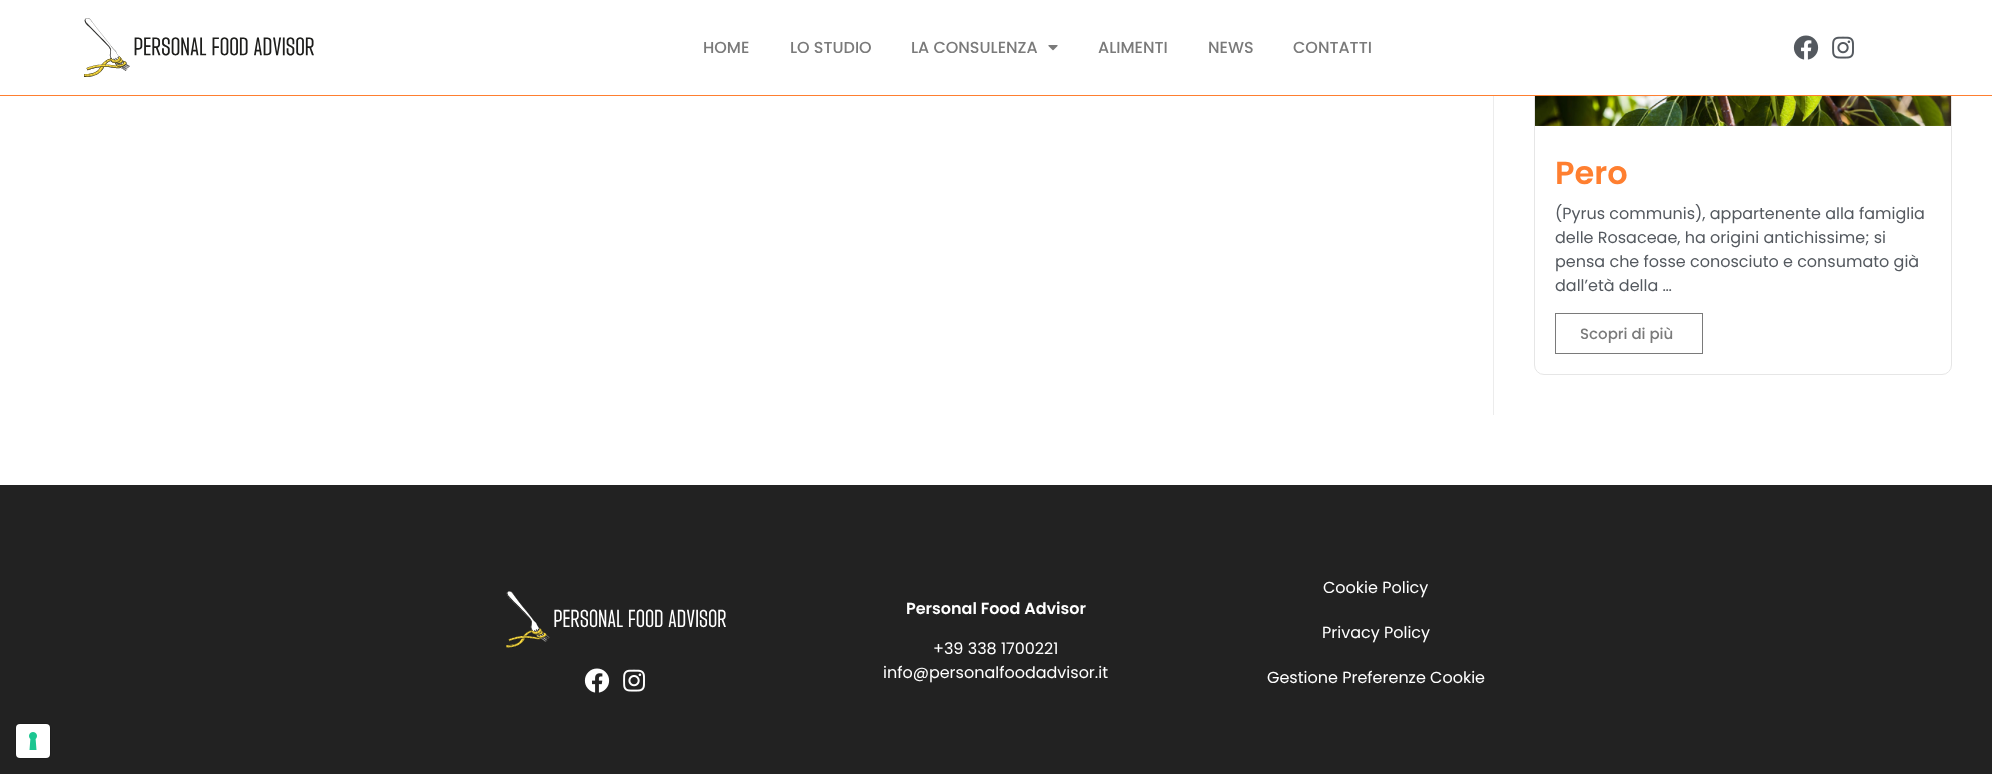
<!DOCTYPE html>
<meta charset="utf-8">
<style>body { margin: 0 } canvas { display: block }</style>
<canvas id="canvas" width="1992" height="774"></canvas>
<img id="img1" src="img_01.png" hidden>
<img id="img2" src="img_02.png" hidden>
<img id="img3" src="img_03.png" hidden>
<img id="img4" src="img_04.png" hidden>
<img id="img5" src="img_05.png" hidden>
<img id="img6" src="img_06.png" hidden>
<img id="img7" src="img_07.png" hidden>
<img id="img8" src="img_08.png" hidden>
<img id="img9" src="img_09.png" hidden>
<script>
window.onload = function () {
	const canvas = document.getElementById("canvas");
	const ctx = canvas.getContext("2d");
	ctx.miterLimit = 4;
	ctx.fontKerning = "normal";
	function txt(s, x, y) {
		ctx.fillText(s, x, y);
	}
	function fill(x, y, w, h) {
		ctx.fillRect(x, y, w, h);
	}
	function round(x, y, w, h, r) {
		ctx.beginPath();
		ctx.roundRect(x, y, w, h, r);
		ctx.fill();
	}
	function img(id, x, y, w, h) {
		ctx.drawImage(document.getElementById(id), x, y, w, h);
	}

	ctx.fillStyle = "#FFFFFF";
	fill(0, 0, 1992, 774);
	ctx.beginPath();
	ctx.roundRect(1534.5, -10.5, 417, 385, 9.5);
	ctx.strokeStyle = "#E6E6E6";
	ctx.stroke();
	fill(1534, 0, 418, 95);
	ctx.fillStyle = "#FF7F30";
	fill(0, 95, 1992, 1);
	img("img1", 84, 18, 230, 59);
	img("img2", 1048, 45, 10, 6);
	img("img3", 1793, 35, 26, 25);
	img("img4", 1832, 36, 22, 23);
	ctx.fillStyle = "#ECECEC";
	fill(1493, 96, 1, 319);
	img("img5", 1535, 96, 416, 30);
	ctx.strokeStyle = "#7A7A7A";
	ctx.strokeRect(1555.5, 313.5, 147, 40);
	ctx.fillStyle = "#222222";
	fill(0, 485, 1992, 289);
	img("img6", 506, 591, 220, 57);
	img("img7", 584, 668, 26, 25);
	img("img8", 623, 669, 22, 23);
	ctx.beginPath();
	ctx.roundRect(15.5, 723.5, 35, 35, 4.5);
	ctx.strokeStyle = "#1D1D1D";
	ctx.stroke();
	ctx.fillStyle = "#FFFFFF";
	round(16, 724, 34, 34, 4);
	img("img9", 29, 732, 8, 18);
	ctx.font = "500 16px Poppins";
	ctx.fillStyle = "#7A7A7A";
	txt("HOME", 703, 53);
	txt("LO STUDIO", 790, 53);
	txt("LA CONSULENZA", 911, 53);
	txt("ALIMENTI", 1098, 53);
	txt("NEWS", 1208, 53);
	txt("CONTATTI", 1293, 53);
	ctx.font = "600 32px Poppins";
	ctx.fillStyle = "#FF7F30";
	txt("Pero", 1555, 184);
	ctx.font = "16px Poppins";
	ctx.fillStyle = "#54595F";
	txt("(Pyrus communis), appartenente alla famiglia", 1555, 219);
	txt("delle Rosaceae, ha origini antichissime; si", 1555, 243);
	txt("pensa che fosse conosciuto e consumato già", 1555, 267);
	txt("dall’età della …", 1555, 291);
	ctx.font = "500 15px Poppins";
	ctx.fillStyle = "#7A7A7A";
	txt("Scopri di più", 1580, 339);
	ctx.font = "600 16px Poppins";
	ctx.fillStyle = "#FFFFFF";
	txt("Personal Food Advisor", 906, 614);
	ctx.font = "16px Poppins";
	txt("+39 338 1700221", 933, 654);
	txt("info@personalfoodadvisor.it", 883, 678);
	txt("Cookie Policy", 1323, 593);
	txt("Privacy Policy", 1322, 638);
	txt("Gestione Preferenze Cookie", 1267, 683);
};
</script>
